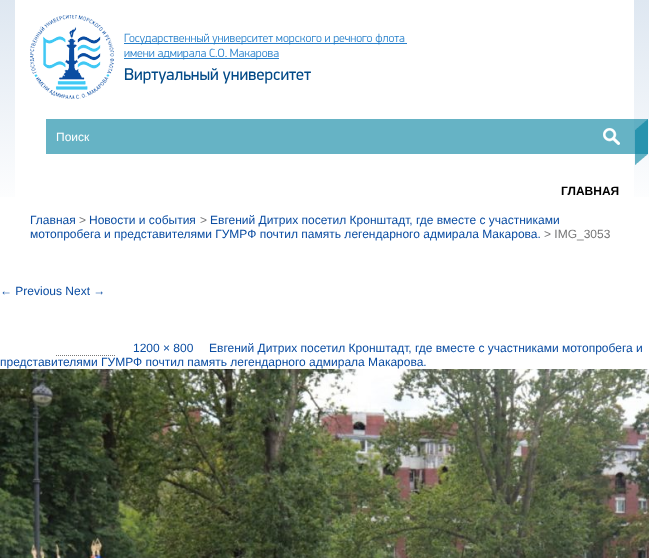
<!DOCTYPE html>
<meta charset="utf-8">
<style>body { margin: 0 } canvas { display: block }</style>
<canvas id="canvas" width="649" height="558"></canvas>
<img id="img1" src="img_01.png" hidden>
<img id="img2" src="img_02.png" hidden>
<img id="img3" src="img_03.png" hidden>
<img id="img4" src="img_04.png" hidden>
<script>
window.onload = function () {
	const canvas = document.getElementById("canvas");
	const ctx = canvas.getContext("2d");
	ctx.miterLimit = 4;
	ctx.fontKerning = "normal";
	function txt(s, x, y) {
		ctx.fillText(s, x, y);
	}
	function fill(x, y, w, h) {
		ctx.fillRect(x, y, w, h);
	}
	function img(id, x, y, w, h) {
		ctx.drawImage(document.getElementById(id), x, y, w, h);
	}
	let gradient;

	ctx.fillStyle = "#FFFFFF";
	fill(0, 0, 649, 558);
	gradient = ctx.createLinearGradient(325, 0, 325, 213);
	gradient.addColorStop(0, "#DEE7F1");
	gradient.addColorStop(1, "#FFFFFF");
	ctx.fillStyle = gradient;
	fill(0, 0, 649, 197);
	gradient = ctx.createLinearGradient(325, 0, 325, 213);
	gradient.addColorStop(0, "#59A9BF");
	gradient.addColorStop(1, "#66B3C5");
	ctx.fillStyle = gradient;
	fill(634, 119, 1, 35);
	ctx.fillStyle = "#FFFFFF";
	fill(15, 0, 619, 197);
	ctx.fillStyle = "#66B3C5";
	fill(46, 119, 588, 35);
	img("img1", 30, 15, 84, 84);
	ctx.fillStyle = "#2780CB";
	fill(124, 43, 283, 1);
	fill(124, 58, 155, 1);
	img("img2", 603, 128, 17, 17);
	img("img3", 635, 119, 13, 46);
	ctx.beginPath();
	ctx.moveTo(56, 355.5);
	ctx.lineTo(116, 355.5);
	ctx.strokeStyle = "#777777";
	ctx.setLineDash([1, 1]);
	ctx.stroke();
	img("img4", 0, 369, 649, 189);
	ctx.font = "300 12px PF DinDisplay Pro";
	txt("Государственный университет морского и речного флота", 124, 42);
	txt("имени адмирала С.О. Макарова", 124, 57);
	ctx.font = "17px PF DinDisplay Pro";
	ctx.fillStyle = "#014987";
	txt("Виртуальный университет", 124, 80);
	ctx.font = "12px Liberation Sans";
	ctx.fillStyle = "#FFFFFF";
	txt("Поиск", 56, 141);
	ctx.font = "bold 12px Liberation Sans";
	ctx.fillStyle = "#000000";
	txt("ГЛАВНАЯ", 561, 195);
	ctx.font = "12px Liberation Sans";
	ctx.fillStyle = "#0B4DA2";
	txt("Главная", 30, 224);
	ctx.fillStyle = "#767677";
	txt(">", 79, 224);
	ctx.fillStyle = "#0B4DA2";
	txt("Новости и события", 89, 224);
	ctx.fillStyle = "#767677";
	txt(">", 200, 224);
	ctx.fillStyle = "#0B4DA2";
	txt("Евгений Дитрих посетил Кронштадт, где вместе с участниками", 210, 224);
	txt("мотопробега и представителями ГУМРФ почтил память легендарного адмирала Макарова.", 30, 238);
	ctx.fillStyle = "#767677";
	txt("> IMG_3053", 544, 238);
	ctx.fillStyle = "#0B4DA2";
	txt("← Previous Next →", 0, 295);
	txt("1200 × 800", 133, 352);
	txt("Евгений Дитрих посетил Кронштадт, где вместе с участниками мотопробега и", 209, 352);
	txt("представителями ГУМРФ почтил память легендарного адмирала Макарова.", 0, 366);
};
</script>
